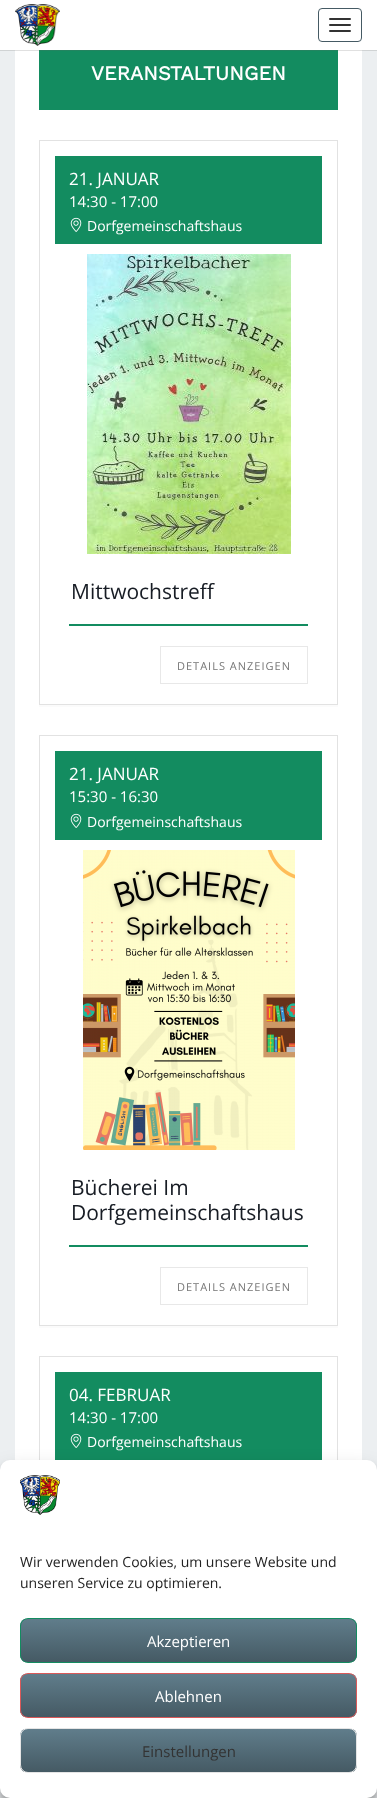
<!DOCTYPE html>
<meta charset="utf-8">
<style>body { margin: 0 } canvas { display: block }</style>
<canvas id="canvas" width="377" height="1798"></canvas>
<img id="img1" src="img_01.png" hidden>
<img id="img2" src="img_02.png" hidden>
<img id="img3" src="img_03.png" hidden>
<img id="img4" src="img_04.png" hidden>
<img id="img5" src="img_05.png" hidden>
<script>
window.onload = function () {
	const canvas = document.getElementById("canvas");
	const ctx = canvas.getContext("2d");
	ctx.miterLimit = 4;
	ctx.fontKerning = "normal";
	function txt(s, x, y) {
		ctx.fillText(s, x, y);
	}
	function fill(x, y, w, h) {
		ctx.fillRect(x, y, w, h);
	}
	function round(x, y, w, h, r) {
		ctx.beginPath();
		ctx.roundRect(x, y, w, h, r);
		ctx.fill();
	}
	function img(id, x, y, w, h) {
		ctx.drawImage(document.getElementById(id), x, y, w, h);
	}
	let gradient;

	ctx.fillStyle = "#ECEFF1";
	fill(0, 0, 377, 1798);
	ctx.fillStyle = "#FFFFFF";
	fill(15, 50, 347, 1410);
	ctx.fillStyle = "#138C60";
	fill(39, 50, 299, 60);
	ctx.fillStyle = "rgba(100, 100, 100, 0.2)";
	ctx.filter = "blur(0.5px)";
	ctx.beginPath();
	ctx.rect(0, 1, 377, 50);
	ctx.fill();
	ctx.filter = "none";
	ctx.fillStyle = "#FFFFFF";
	fill(0, 0, 377, 50);
	img("img1", 15, 4, 45, 42);
	ctx.beginPath();
	ctx.roundRect(318.5, 8.5, 43, 33, 3.5);
	ctx.strokeStyle = "#455A64";
	ctx.stroke();
	ctx.fillStyle = "#333333";
	round(329, 18, 22, 2, 1);
	round(329, 24, 22, 2, 1);
	round(329, 30, 22, 2, 1);
	ctx.fillStyle = "#FBFBFB";
	fill(39, 705, 299, 2);
	ctx.strokeStyle = "#E2E2E2";
	ctx.strokeRect(39.5, 140.5, 298, 564);
	ctx.fillStyle = "#138C60";
	fill(55, 156, 267, 88);
	img("img2", 70, 217, 12, 15);
	img("img3", 87, 254, 204, 300);
	fill(69, 624, 239, 2);
	ctx.strokeStyle = "#E8E8E8";
	ctx.strokeRect(160.5, 646.5, 147, 37);
	ctx.fillStyle = "#FBFBFB";
	fill(39, 1326, 299, 2);
	ctx.strokeStyle = "#E2E2E2";
	ctx.strokeRect(39.5, 735.5, 298, 590);
	ctx.fillStyle = "#138C60";
	fill(55, 751, 267, 89);
	img("img2", 70, 813, 12, 15);
	img("img4", 83, 850, 212, 300);
	fill(69, 1245, 239, 2);
	ctx.strokeStyle = "#E8E8E8";
	ctx.strokeRect(160.5, 1267.5, 147, 37);
	ctx.strokeStyle = "#E2E2E2";
	ctx.strokeRect(39.5, 1356.5, 298, 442);
	fill(55, 1372, 267, 88);
	img("img2", 70, 1433, 12, 15);
	ctx.fillStyle = "rgba(0, 0, 0, 0.23)";
	ctx.filter = "blur(3px)";
	ctx.beginPath();
	ctx.roundRect(0, 1466, 377, 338, 10);
	ctx.fill();
	ctx.filter = "none";
	ctx.fillStyle = "rgba(0, 0, 0, 0.19)";
	ctx.filter = "blur(10px)";
	ctx.beginPath();
	ctx.roundRect(0, 1470, 377, 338, 10);
	ctx.fill();
	ctx.filter = "none";
	ctx.fillStyle = "#FFFFFF";
	round(0, 1460, 377, 338, 10);
	img("img5", 20, 1475, 40, 40);
	ctx.save();
	ctx.beginPath();
	ctx.roundRect(20, 1618, 337, 45, 8);
	ctx.clip();
	gradient = ctx.createLinearGradient(189, 1619, 189, 1662);
	gradient.addColorStop(0, "#607D8B");
	gradient.addColorStop(1, "#455A64");
	ctx.fillStyle = gradient;
	fill(20, 1619, 337, 43);
	ctx.restore();
	ctx.beginPath();
	ctx.roundRect(20.5, 1618.5, 336, 44, 7.5);
	ctx.strokeStyle = "#138C60";
	ctx.stroke();
	ctx.save();
	ctx.beginPath();
	ctx.roundRect(20, 1673, 337, 45, 8);
	ctx.clip();
	gradient = ctx.createLinearGradient(189, 1674, 189, 1717);
	gradient.addColorStop(0, "#607D8B");
	gradient.addColorStop(1, "#455A64");
	ctx.fillStyle = gradient;
	fill(20, 1674, 337, 43);
	ctx.restore();
	ctx.beginPath();
	ctx.roundRect(20.5, 1673.5, 336, 44, 7.5);
	ctx.strokeStyle = "#DA5959";
	ctx.stroke();
	ctx.save();
	ctx.beginPath();
	ctx.roundRect(20, 1728, 337, 45, 8);
	ctx.clip();
	gradient = ctx.createLinearGradient(189, 1729, 189, 1772);
	gradient.addColorStop(0, "#607D8B");
	gradient.addColorStop(1, "#455A64");
	ctx.fillStyle = gradient;
	fill(20, 1729, 337, 43);
	ctx.restore();
	ctx.beginPath();
	ctx.roundRect(20.5, 1728.5, 336, 44, 7.5);
	ctx.strokeStyle = "#E5E5E5";
	ctx.stroke();
	ctx.font = "bold 20px Work Sans";
	txt("VERANSTALTUNGEN", 91, 80);
	ctx.font = "17px Open Sans";
	txt("21. JANUAR", 69, 185);
	ctx.font = "15px Open Sans";
	txt("14:30 - 17:00", 69, 207);
	ctx.font = "14px Open Sans";
	txt("Dorfgemeinschaftshaus", 87, 231);
	ctx.font = "21px Open Sans";
	ctx.fillStyle = "#171C24";
	txt("Mittwochstreff", 71, 599);
	ctx.letterSpacing = "1px";
	ctx.font = "11px Open Sans";
	ctx.fillStyle = "#767676";
	txt("DETAILS ANZEIGEN", 177, 670);
	ctx.letterSpacing = "0px";
	ctx.font = "17px Open Sans";
	ctx.fillStyle = "#FFFFFF";
	txt("21. JANUAR", 69, 780);
	ctx.font = "15px Open Sans";
	txt("15:30 - 16:30", 69, 802);
	ctx.font = "14px Open Sans";
	txt("Dorfgemeinschaftshaus", 87, 827);
	ctx.font = "21px Open Sans";
	ctx.fillStyle = "#171C24";
	txt("Bücherei Im", 71, 1195);
	txt("Dorfgemeinschaftshaus", 71, 1220);
	ctx.letterSpacing = "1px";
	ctx.font = "11px Open Sans";
	ctx.fillStyle = "#767676";
	txt("DETAILS ANZEIGEN", 177, 1291);
	ctx.letterSpacing = "0px";
	ctx.font = "17px Open Sans";
	ctx.fillStyle = "#FFFFFF";
	txt("04. FEBRUAR", 69, 1401);
	ctx.font = "15px Open Sans";
	txt("14:30 - 17:00", 69, 1423);
	ctx.font = "14px Open Sans";
	txt("Dorfgemeinschaftshaus", 87, 1447);
	ctx.fillStyle = "#222222";
	txt("Wir verwenden Cookies, um unsere Website und", 20, 1567);
	txt("unseren Service zu optimieren.", 20, 1588);
	ctx.font = "15px Open Sans";
	ctx.fillStyle = "#FFFFFF";
	txt("Akzeptieren", 147, 1647);
	txt("Ablehnen", 155, 1702);
	ctx.fillStyle = "#333333";
	txt("Einstellungen", 142, 1757);
};
</script>
